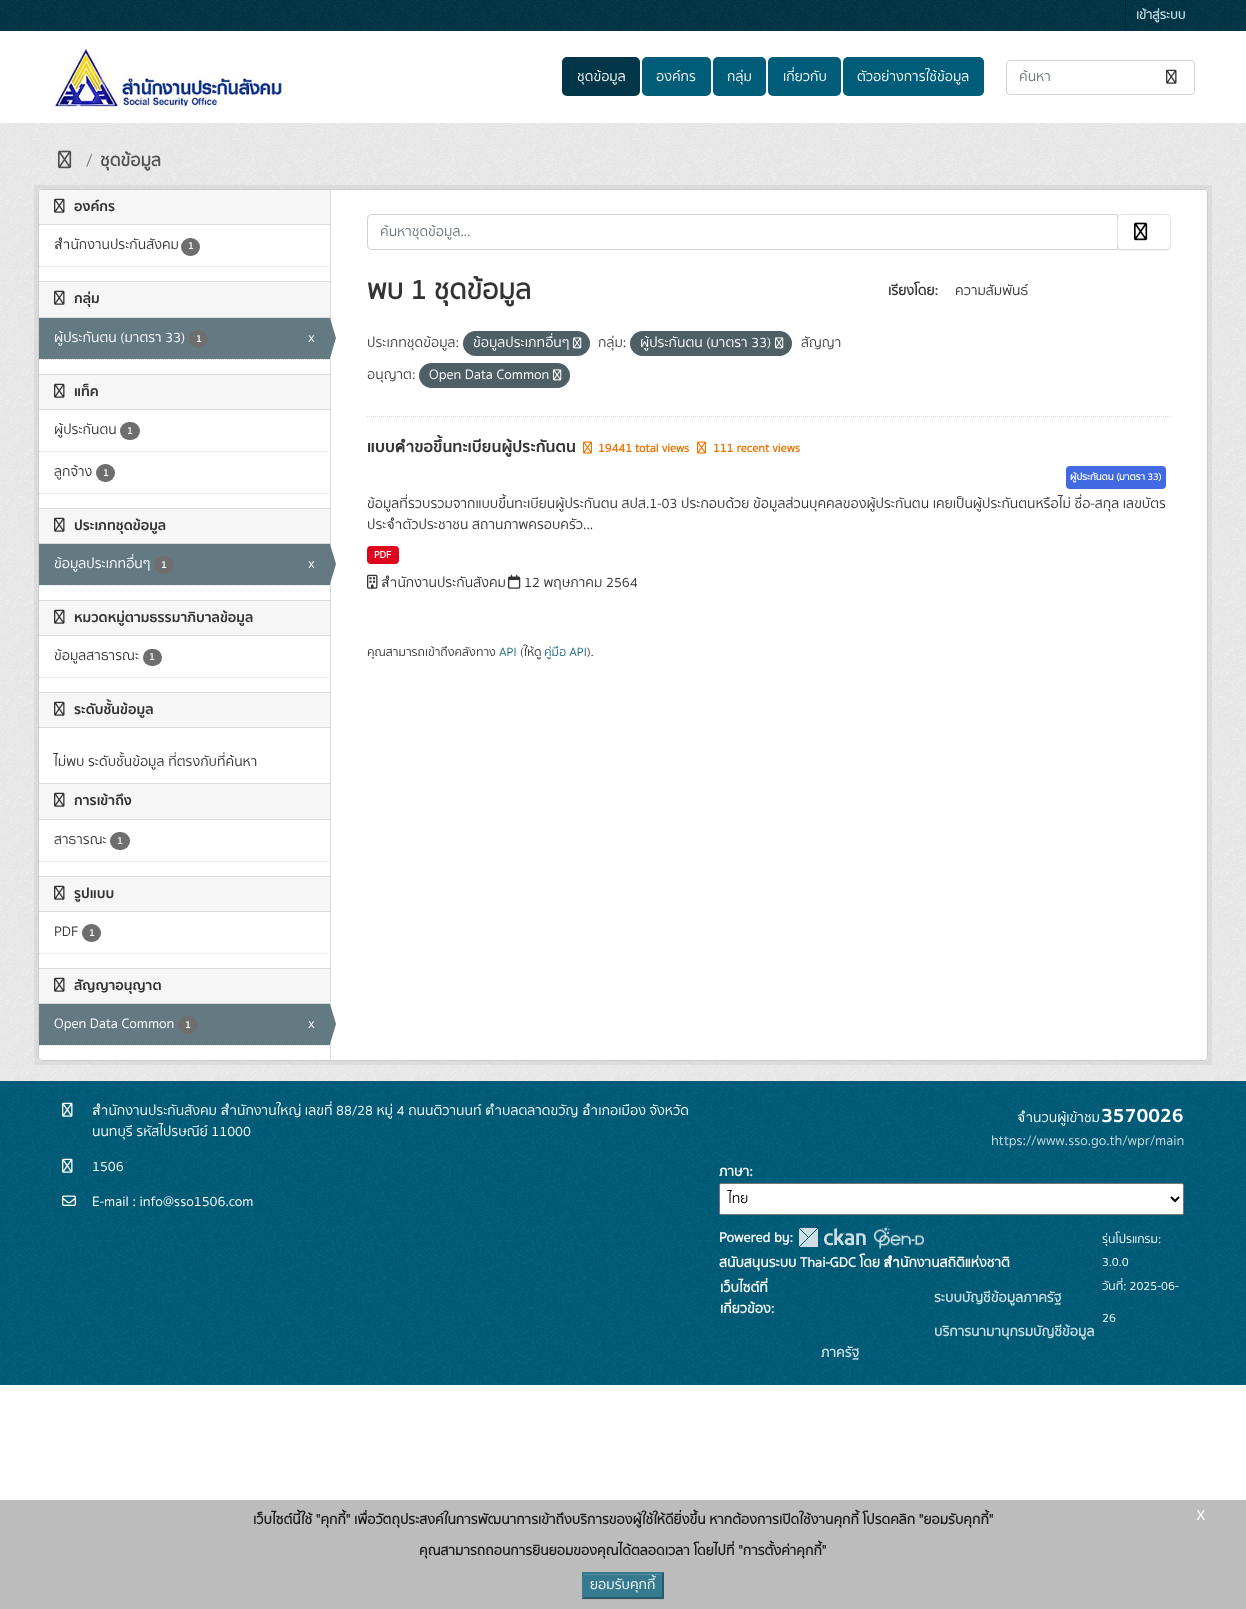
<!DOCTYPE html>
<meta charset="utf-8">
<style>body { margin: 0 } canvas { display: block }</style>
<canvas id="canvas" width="1246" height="1609"></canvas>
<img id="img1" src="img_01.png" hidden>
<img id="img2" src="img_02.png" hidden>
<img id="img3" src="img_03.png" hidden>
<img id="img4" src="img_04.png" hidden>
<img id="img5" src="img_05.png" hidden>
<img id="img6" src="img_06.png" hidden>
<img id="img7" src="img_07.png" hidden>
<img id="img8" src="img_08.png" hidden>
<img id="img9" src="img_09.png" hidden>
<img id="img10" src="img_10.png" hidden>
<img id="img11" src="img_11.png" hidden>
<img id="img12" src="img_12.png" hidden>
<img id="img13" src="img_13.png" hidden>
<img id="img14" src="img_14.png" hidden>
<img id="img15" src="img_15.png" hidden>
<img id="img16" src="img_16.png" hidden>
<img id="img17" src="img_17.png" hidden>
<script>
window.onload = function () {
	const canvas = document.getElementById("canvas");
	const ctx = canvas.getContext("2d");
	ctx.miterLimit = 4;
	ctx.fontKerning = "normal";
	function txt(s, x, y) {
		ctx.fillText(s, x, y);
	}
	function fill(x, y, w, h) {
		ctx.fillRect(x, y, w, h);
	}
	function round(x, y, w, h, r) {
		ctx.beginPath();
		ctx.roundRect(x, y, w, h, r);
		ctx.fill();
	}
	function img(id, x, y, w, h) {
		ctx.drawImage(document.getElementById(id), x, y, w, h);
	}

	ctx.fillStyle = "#FFFFFF";
	fill(0, 0, 1246, 1609);
	ctx.fillStyle = "#003647";
	fill(0, 0, 1246, 31);
	img("img1", 0, 0, 1246, 31);
	ctx.fillStyle = "#00232E";
	fill(1125, 0, 1, 31);
	img("img2", 52, 47, 232, 60);
	ctx.fillStyle = "#003647";
	round(562, 57, 78, 39, 5);
	ctx.fillStyle = "#005D7A";
	round(642, 57, 69, 39, 5);
	round(713, 57, 53, 39, 5);
	round(768, 57, 73, 39, 5);
	round(843, 57, 141, 39, 5);
	ctx.beginPath();
	ctx.roundRect(1006.5, 60.5, 188, 34, 3.5);
	ctx.strokeStyle = "#CED4DA";
	ctx.stroke();
	img("img3", 1166, 69, 11, 15);
	ctx.fillStyle = "#EEEEEE";
	fill(0, 123, 1246, 958);
	img("img4", 0, 123, 1246, 958);
	img("img5", 58, 150, 14, 19);
	ctx.strokeStyle = "rgba(0, 0, 0, 0.05)";
	ctx.lineWidth = 4;
	ctx.strokeRect(36, 187, 1174, 876);
	ctx.fillStyle = "#FFFFFF";
	ctx.beginPath();
	ctx.roundRect(38.5, 189.5, 1169, 871, 3.5);
	ctx.fill();
	ctx.strokeStyle = "#CCCCCC";
	ctx.lineWidth = 1;
	ctx.stroke();
	ctx.fillStyle = "#F6F6F6";
	ctx.beginPath();
	ctx.roundRect(39, 190, 291, 35, [3, 0, 0, 0]);
	ctx.fill();
	ctx.fillStyle = "#DDDDDD";
	fill(39, 224, 291, 1);
	img("img6", 54, 198, 11, 15);
	ctx.fillStyle = "#6E6E6E";
	round(181, 238, 19, 18, 9);
	ctx.beginPath();
	ctx.moveTo(39, 266.5);
	ctx.lineTo(330, 266.5);
	ctx.strokeStyle = "#DDDDDD";
	ctx.setLineDash([1, 1]);
	ctx.stroke();
	ctx.fillStyle = "#F6F6F6";
	fill(39, 282, 291, 35);
	ctx.fillStyle = "#DDDDDD";
	fill(39, 281, 291, 1);
	fill(39, 317, 291, 1);
	img("img6", 54, 290, 11, 15);
	ctx.fillStyle = "#647A82";
	fill(39, 318, 291, 41);
	ctx.fillStyle = "#6E6E6E";
	round(189, 330, 19, 18, 9);
	ctx.fillStyle = "#DDDDDD";
	fill(330, 190, 1, 870);
	ctx.fillStyle = "#647A82";
	ctx.beginPath();
	ctx.moveTo(330, 358);
	ctx.lineTo(330, 318);
	ctx.lineTo(336, 338);
	ctx.closePath();
	ctx.fill();
	ctx.beginPath();
	ctx.moveTo(39, 359.5);
	ctx.lineTo(330, 359.5);
	ctx.stroke();
	ctx.fillStyle = "#F6F6F6";
	fill(39, 375, 291, 34);
	ctx.fillStyle = "#DDDDDD";
	fill(39, 374, 291, 1);
	fill(39, 409, 291, 1);
	img("img6", 54, 383, 11, 15);
	ctx.beginPath();
	ctx.moveTo(39, 451.5);
	ctx.lineTo(330, 451.5);
	ctx.stroke();
	ctx.fillStyle = "#6E6E6E";
	round(120, 422, 20, 18, 9);
	round(96, 464, 19, 18, 9);
	ctx.beginPath();
	ctx.moveTo(39, 493.5);
	ctx.lineTo(330, 493.5);
	ctx.stroke();
	ctx.fillStyle = "#F6F6F6";
	fill(39, 509, 291, 34);
	ctx.fillStyle = "#DDDDDD";
	fill(39, 508, 291, 1);
	fill(39, 543, 291, 1);
	img("img6", 54, 517, 11, 15);
	ctx.fillStyle = "#647A82";
	fill(39, 544, 291, 41);
	ctx.fillStyle = "#6E6E6E";
	round(154, 556, 20, 18, 9);
	ctx.fillStyle = "#647A82";
	ctx.beginPath();
	ctx.moveTo(330, 584);
	ctx.lineTo(330, 544);
	ctx.lineTo(336, 564);
	ctx.closePath();
	ctx.fill();
	ctx.beginPath();
	ctx.moveTo(39, 585.5);
	ctx.lineTo(330, 585.5);
	ctx.stroke();
	ctx.fillStyle = "#F6F6F6";
	fill(39, 601, 291, 34);
	ctx.fillStyle = "#DDDDDD";
	fill(39, 600, 291, 1);
	fill(39, 635, 291, 1);
	img("img6", 54, 609, 11, 15);
	ctx.fillStyle = "#6E6E6E";
	round(143, 649, 19, 17, 8.5);
	ctx.beginPath();
	ctx.moveTo(39, 677.5);
	ctx.lineTo(330, 677.5);
	ctx.stroke();
	ctx.fillStyle = "#F6F6F6";
	fill(39, 693, 291, 34);
	ctx.fillStyle = "#DDDDDD";
	fill(39, 692, 291, 1);
	fill(39, 727, 291, 1);
	img("img6", 54, 701, 11, 15);
	ctx.fillStyle = "#F6F6F6";
	fill(39, 784, 291, 35);
	ctx.fillStyle = "#DDDDDD";
	fill(39, 783, 291, 1);
	fill(39, 819, 291, 1);
	img("img6", 54, 792, 11, 15);
	ctx.fillStyle = "#6E6E6E";
	round(110, 832, 20, 18, 9);
	ctx.beginPath();
	ctx.moveTo(39, 861.5);
	ctx.lineTo(330, 861.5);
	ctx.stroke();
	ctx.fillStyle = "#F6F6F6";
	fill(39, 877, 291, 34);
	ctx.fillStyle = "#DDDDDD";
	fill(39, 876, 291, 1);
	fill(39, 911, 291, 1);
	img("img6", 54, 885, 11, 15);
	ctx.fillStyle = "#6E6E6E";
	round(82, 924, 19, 18, 9);
	ctx.beginPath();
	ctx.moveTo(39, 953.5);
	ctx.lineTo(330, 953.5);
	ctx.stroke();
	ctx.fillStyle = "#F6F6F6";
	fill(39, 969, 291, 34);
	ctx.fillStyle = "#DDDDDD";
	fill(39, 968, 291, 1);
	fill(39, 1003, 291, 1);
	img("img6", 54, 977, 11, 15);
	ctx.fillStyle = "#647A82";
	fill(39, 1004, 291, 41);
	ctx.fillStyle = "#6E6E6E";
	round(178, 1016, 20, 18, 9);
	ctx.fillStyle = "#647A82";
	ctx.beginPath();
	ctx.moveTo(330, 1044);
	ctx.lineTo(330, 1004);
	ctx.lineTo(336, 1024);
	ctx.closePath();
	ctx.fill();
	ctx.beginPath();
	ctx.moveTo(39, 1045.5);
	ctx.lineTo(330, 1045.5);
	ctx.stroke();
	ctx.beginPath();
	ctx.moveTo(367, 416.5);
	ctx.lineTo(1171, 416.5);
	ctx.stroke();
	ctx.beginPath();
	ctx.roundRect(367.5, 214.5, 750, 35, [3.5, 0, 0, 3.5]);
	ctx.strokeStyle = "#CED4DA";
	ctx.setLineDash([]);
	ctx.stroke();
	ctx.fillStyle = "rgba(0, 0, 0, 0.07)";
	ctx.filter = "blur(0.5px)";
	ctx.beginPath();
	ctx.roundRect(1117, 215, 54, 36, 5);
	ctx.fill();
	ctx.filter = "none";
	ctx.fillStyle = "#FFFFFF";
	ctx.beginPath();
	ctx.roundRect(1117.5, 214.5, 53, 35, 4.5);
	ctx.fill();
	ctx.strokeStyle = "#DEE2E6";
	ctx.stroke();
	img("img7", 1134, 222, 14, 19);
	ctx.fillStyle = "#4E5F65";
	round(463, 331, 127, 25, 12.5);
	img("img8", 573, 337, 9, 12);
	round(630, 331, 162, 25, 12.5);
	img("img8", 775, 337, 9, 12);
	round(419, 363, 151, 25, 12.5);
	img("img8", 553, 369, 9, 12);
	img("img9", 583, 441, 9, 13);
	img("img9", 697, 441, 9, 13);
	ctx.fillStyle = "#4169E1";
	round(1066, 466, 100, 23, 4);
	ctx.fillStyle = "#E0051E";
	round(367, 546, 32, 18, 4);
	img("img10", 367, 574, 11, 15);
	img("img11", 508, 574, 13, 15);
	ctx.fillStyle = "#005D7A";
	fill(0, 1081, 1246, 304);
	img("img12", 0, 1081, 1246, 304);
	img("img13", 62, 1102, 11, 15);
	img("img14", 62, 1158, 11, 15);
	img("img15", 62, 1195, 14, 11);
	ctx.fillStyle = "#FFFFFF";
	ctx.beginPath();
	ctx.roundRect(719.5, 1183.5, 464, 31, 1.5);
	ctx.fill();
	ctx.strokeStyle = "#767676";
	ctx.stroke();
	ctx.beginPath();
	ctx.moveTo(1171, 1197);
	ctx.lineTo(1175, 1201);
	ctx.lineTo(1179, 1197);
	ctx.strokeStyle = "#000000";
	ctx.lineWidth = 2;
	ctx.stroke();
	img("img16", 799, 1228, 67, 19);
	img("img17", 874, 1226, 50, 23);
	ctx.fillStyle = "#BCBCBC";
	fill(0, 1500, 1246, 109);
	ctx.fillStyle = "rgba(26, 26, 26, 0.07)";
	ctx.filter = "blur(0.5px)";
	ctx.beginPath();
	ctx.rect(582, 1573, 82, 27);
	ctx.fill();
	ctx.filter = "none";
	ctx.fillStyle = "#367A8F";
	fill(582, 1572, 82, 27);
	ctx.fillStyle = "#548EA0";
	fill(584, 1574, 78, 1);
	ctx.fillStyle = "#2C5968";
	ctx.beginPath();
	ctx.moveTo(664, 1572);
	ctx.lineTo(664, 1599);
	ctx.lineTo(662, 1597);
	ctx.lineTo(662, 1574);
	ctx.closePath();
	ctx.fill();
	ctx.beginPath();
	ctx.moveTo(664, 1599);
	ctx.lineTo(582, 1599);
	ctx.lineTo(584, 1597);
	ctx.lineTo(662, 1597);
	ctx.closePath();
	ctx.fill();
	ctx.fillStyle = "#367A8F";
	ctx.beginPath();
	ctx.moveTo(582, 1599);
	ctx.lineTo(582, 1572);
	ctx.lineTo(584, 1574);
	ctx.lineTo(584, 1597);
	ctx.closePath();
	ctx.fill();
	ctx.font = "bold 13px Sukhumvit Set";
	ctx.fillStyle = "#BFD7DE";
	txt("เข้าสู่ระบบ", 1136, 19);
	ctx.font = "14px Sukhumvit Set";
	ctx.fillStyle = "#FFFFFF";
	txt("ชุดข้อมูล", 577, 81);
	txt("องค์กร", 656, 81);
	txt("กลุ่ม", 727, 81);
	txt("เกี่ยวกับ", 783, 81);
	txt("ตัวอย่างการใช้ข้อมูล", 857, 81);
	ctx.save();
	ctx.beginPath();
	ctx.rect(1019, 67, 163, 20);
	ctx.clip();
	ctx.fillStyle = "#6C757D";
	txt("ค้นหา", 1019, 81);
	ctx.restore();
	ctx.font = "17.5px Sukhumvit Set";
	ctx.fillStyle = "#6C757D";
	txt("/", 86, 166);
	ctx.font = "bold 17.5px Sukhumvit Set";
	ctx.fillStyle = "#505050";
	txt("ชุดข้อมูล", 100, 166);
	ctx.font = "bold 14px 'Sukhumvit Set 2'";
	ctx.fillStyle = "#333333";
	txt("องค์กร", 74, 211);
	ctx.font = "14px Sukhumvit Set";
	txt("สำนักงานประกันสังคม", 54, 249);
	ctx.font = "bold 10px Sukhumvit Set";
	ctx.fillStyle = "#FFFFFF";
	txt("1", 188, 249);
	ctx.font = "bold 14px 'Sukhumvit Set 2'";
	ctx.fillStyle = "#333333";
	txt("กลุ่ม", 74, 303);
	ctx.font = "14px Sukhumvit Set";
	ctx.fillStyle = "#FFFFFF";
	txt("ผู้ประกันตน (มาตรา 33)", 54, 342);
	ctx.font = "bold 10px Sukhumvit Set";
	txt("1", 196, 342);
	ctx.font = "14px Sukhumvit Set";
	txt("x", 308, 342);
	ctx.font = "bold 14px 'Sukhumvit Set 2'";
	ctx.fillStyle = "#333333";
	txt("แท็ค", 74, 396);
	ctx.font = "14px Sukhumvit Set";
	txt("ผู้ประกันตน", 54, 434);
	ctx.font = "bold 10px Sukhumvit Set";
	ctx.fillStyle = "#FFFFFF";
	txt("1", 127, 434);
	ctx.font = "14px Sukhumvit Set";
	ctx.fillStyle = "#333333";
	txt("ลูกจ้าง", 54, 476);
	ctx.font = "bold 10px Sukhumvit Set";
	ctx.fillStyle = "#FFFFFF";
	txt("1", 103, 476);
	ctx.font = "bold 14px 'Sukhumvit Set 2'";
	ctx.fillStyle = "#333333";
	txt("ประเภทชุดข้อมูล", 74, 530);
	ctx.font = "14px Sukhumvit Set";
	ctx.fillStyle = "#FFFFFF";
	txt("ข้อมูลประเภทอื่นๆ", 54, 568);
	ctx.font = "bold 10px Sukhumvit Set";
	txt("1", 161, 568);
	ctx.font = "14px Sukhumvit Set";
	txt("x", 308, 568);
	ctx.font = "bold 14px 'Sukhumvit Set 2'";
	ctx.fillStyle = "#333333";
	txt("หมวดหมู่ตามธรรมาภิบาลข้อมูล", 74, 622);
	ctx.font = "14px Sukhumvit Set";
	txt("ข้อมูลสาธารณะ", 54, 660);
	ctx.font = "bold 10px Sukhumvit Set";
	ctx.fillStyle = "#FFFFFF";
	txt("1", 149, 660);
	ctx.font = "bold 14px 'Sukhumvit Set 2'";
	ctx.fillStyle = "#333333";
	txt("ระดับชั้นข้อมูล", 74, 714);
	ctx.font = "14px Sukhumvit Set";
	txt("ไม่พบ ระดับชั้นข้อมูล ที่ตรงกับที่ค้นหา", 54, 766);
	ctx.font = "bold 14px 'Sukhumvit Set 2'";
	txt("การเข้าถึง", 74, 805);
	ctx.font = "14px Sukhumvit Set";
	txt("สาธารณะ", 54, 844);
	ctx.font = "bold 10px Sukhumvit Set";
	ctx.fillStyle = "#FFFFFF";
	txt("1", 117, 844);
	ctx.font = "bold 14px 'Sukhumvit Set 2'";
	ctx.fillStyle = "#333333";
	txt("รูปแบบ", 74, 898);
	ctx.font = "14px Sukhumvit Set";
	txt("PDF", 54, 936);
	ctx.font = "bold 10px Sukhumvit Set";
	ctx.fillStyle = "#FFFFFF";
	txt("1", 89, 936);
	ctx.font = "bold 14px 'Sukhumvit Set 2'";
	ctx.fillStyle = "#333333";
	txt("สัญญาอนุญาต", 74, 990);
	ctx.font = "14px Sukhumvit Set";
	ctx.fillStyle = "#FFFFFF";
	txt("Open Data Common", 54, 1028);
	ctx.font = "bold 10px Sukhumvit Set";
	txt("1", 185, 1028);
	ctx.font = "14px Sukhumvit Set";
	txt("x", 308, 1028);
	ctx.save();
	ctx.beginPath();
	ctx.rect(380, 222, 725, 20);
	ctx.clip();
	ctx.fillStyle = "#6C757D";
	txt("ค้นหาชุดข้อมูล...", 380, 236);
	ctx.restore();
	ctx.font = "bold 28px Sukhumvit Set";
	ctx.fillStyle = "#333333";
	txt("พบ 1 ชุดข้อมูล", 367, 299);
	ctx.font = "bold 14px Sukhumvit Set";
	txt("เรียงโดย:", 888, 295);
	ctx.font = "14px Sukhumvit Set";
	txt("ความสัมพันธ์", 955, 295);
	ctx.fillStyle = "#444444";
	txt("ประเภทชุดข้อมูล:", 367, 347);
	ctx.fillStyle = "#FFFFFF";
	txt("ข้อมูลประเภทอื่นๆ", 473, 347);
	ctx.fillStyle = "#444444";
	txt("กลุ่ม:", 598, 347);
	ctx.fillStyle = "#FFFFFF";
	txt("ผู้ประกันตน (มาตรา 33)", 640, 347);
	ctx.fillStyle = "#444444";
	txt("สัญญา", 801, 347);
	txt("อนุญาต:", 367, 379);
	ctx.fillStyle = "#FFFFFF";
	txt("Open Data Common", 429, 379);
	ctx.font = "bold 16px 'Sukhumvit Set 2'";
	ctx.fillStyle = "#333333";
	txt("แบบคำขอขึ้นทะเบียนผู้ประกันตน", 367, 452);
	ctx.font = "bold 12px Sukhumvit Set";
	ctx.fillStyle = "#EF7100";
	txt("19441 total views", 598, 452);
	txt("111 recent views", 713, 452);
	ctx.font = "bold 9.75px Sukhumvit Set";
	ctx.fillStyle = "#FFFFFF";
	txt("ผู้ประกันตน (มาตรา 33)", 1070, 480);
	ctx.font = "14px Sukhumvit Set";
	ctx.fillStyle = "#333333";
	txt("ข้อมูลที่รวบรวมจากแบบขึ้นทะเบียนผู้ประกันตน สปส.1-03 ประกอบด้วย ข้อมูลส่วนบุคคลของผู้ประกันตน เคยเป็นผู้ประกันตนหรือไม่ ชื่อ-สกุล เลขบัตร", 367, 508);
	txt("ประจำตัวประชาชน สถานภาพครอบครัว...", 367, 529);
	ctx.font = "bold 10px Sukhumvit Set";
	ctx.fillStyle = "#FFFFFF";
	txt("PDF", 374, 558);
	ctx.font = "14px Sukhumvit Set";
	ctx.fillStyle = "#333333";
	txt("สำนักงานประกันสังคม", 381, 587);
	txt("12 พฤษภาคม 2564", 524, 587);
	ctx.font = "12.25px Sukhumvit Set";
	txt("คุณสามารถเข้าถึงคลังทาง", 367, 656);
	ctx.fillStyle = "#206B82";
	txt("API", 499, 656);
	ctx.fillStyle = "#333333";
	txt("(ให้ดู", 520, 656);
	ctx.fillStyle = "#206B82";
	txt("คู่มือ API", 544, 656);
	ctx.fillStyle = "#333333";
	txt(").", 587, 656);
	ctx.font = "14px Sukhumvit Set";
	ctx.fillStyle = "#FFFFFF";
	txt("สำนักงานประกันสังคม สำนักงานใหญ่ เลขที่ 88/28 หมู่ 4 ถนนติวานนท์ ตำบลตลาดขวัญ อำเภอเมือง จังหวัด", 92, 1115);
	txt("นนทบุรี รหัสไปรษณีย์ 11000", 92, 1136);
	txt("1506", 92, 1171);
	txt("E-mail : info@sso1506.com", 92, 1206);
	txt("จำนวนผู้เข้าชม", 1017, 1122);
	ctx.font = "bold 20px 'Sukhumvit Set 2'";
	txt("3570026", 1101, 1122);
	ctx.font = "14px Sukhumvit Set";
	ctx.fillStyle = "#CCDEE3";
	txt("https://www.sso.go.th/wpr/main", 991, 1145);
	ctx.font = "bold 14px Sukhumvit Set";
	ctx.fillStyle = "#FFFFFF";
	txt("ภาษา:", 719, 1176);
	ctx.font = "14px Sukhumvit Set";
	ctx.fillStyle = "#000000";
	txt("ไทย", 728, 1203);
	ctx.font = "bold 14px Sukhumvit Set";
	ctx.fillStyle = "#FFFFFF";
	txt("Powered by:", 719, 1242);
	txt("สนับสนุนระบบ Thai-GDC โดย สำนักงานสถิติแห่งชาติ", 719, 1267);
	txt("เว็บไซต์ที่", 720, 1292);
	txt("เกี่ยวข้อง:", 720, 1313);
	ctx.fillStyle = "#CCDEE3";
	txt("ระบบบัญชีข้อมูลภาครัฐ", 934, 1302);
	txt("บริการนามานุกรมบัญชีข้อมูล", 934, 1336);
	txt("ภาครัฐ", 821, 1357);
	ctx.font = "12.25px Sukhumvit Set";
	ctx.fillStyle = "#FFFFFF";
	txt("รุ่นโปรแกรม:", 1102, 1243);
	txt("3.0.0", 1102, 1266);
	txt("วันที่: 2025-06-", 1102, 1290);
	txt("26", 1102, 1322);
	ctx.font = "bold 14px Sukhumvit Set";
	ctx.fillStyle = "#1A1A1A";
	txt("เว็บไซต์นี้ใช้ \"คุกกี้\" เพื่อวัตถุประสงค์ในการพัฒนาการเข้าถึงบริการของผู้ใช้ให้ดียิ่งขึ้น หากต้องการเปิดใช้งานคุกกี้ โปรดคลิก \"ยอมรับคุกกี้\"", 253, 1524);
	ctx.font = "20px Sukhumvit Set";
	ctx.fillStyle = "#FFFFFF";
	txt("x", 1196, 1520);
	ctx.font = "bold 14px Sukhumvit Set";
	ctx.fillStyle = "#1A1A1A";
	txt("คุณสามารถถอนการยินยอมของคุณได้ตลอดเวลา โดยไปที่ \"การตั้งค่าคุกกี้\"", 419, 1555);
	ctx.font = "14px Sukhumvit Set";
	ctx.fillStyle = "#FFFFFF";
	txt("ยอมรับคุกกี้", 590, 1589);
};
</script>
